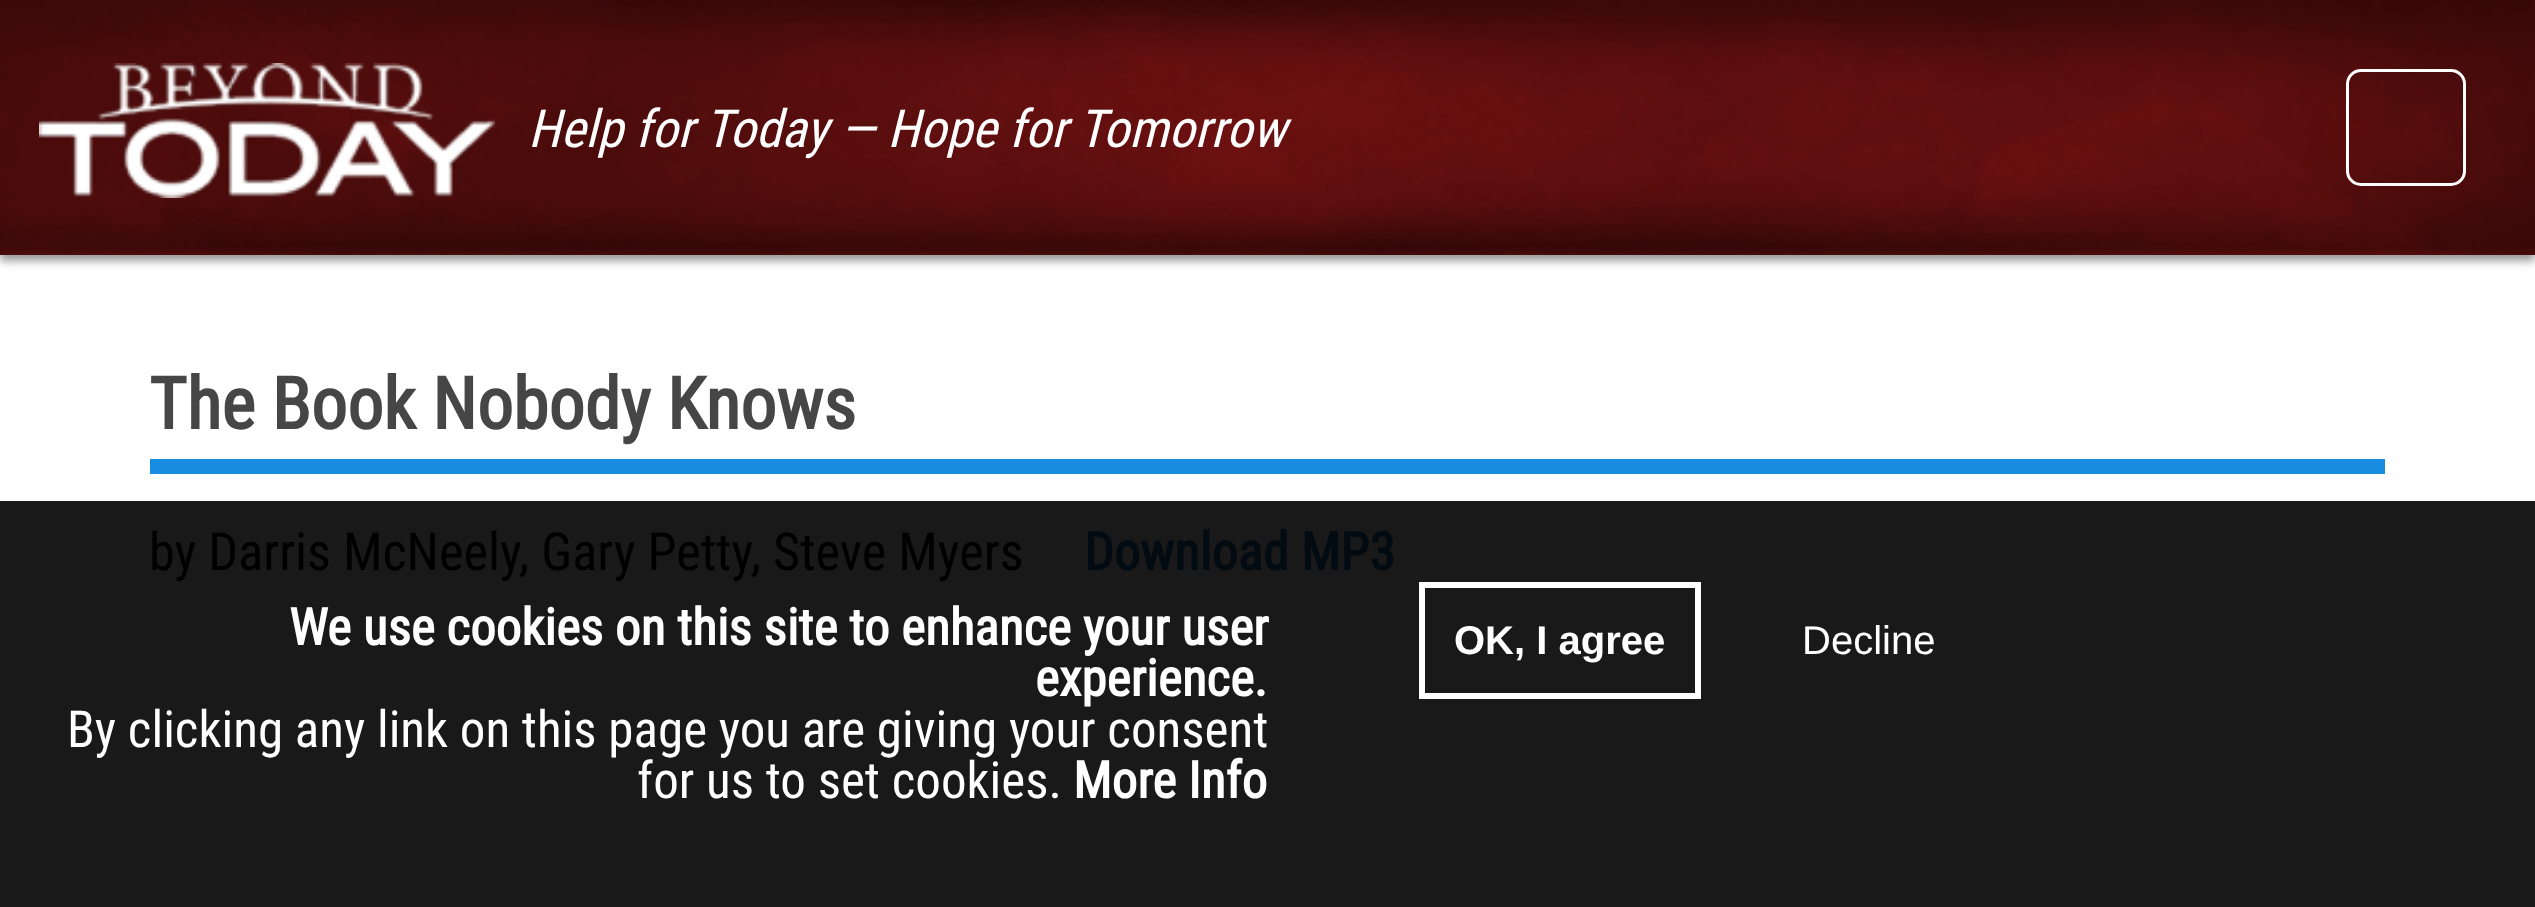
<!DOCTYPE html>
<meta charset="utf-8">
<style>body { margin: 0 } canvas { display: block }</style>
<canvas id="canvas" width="2535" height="907"></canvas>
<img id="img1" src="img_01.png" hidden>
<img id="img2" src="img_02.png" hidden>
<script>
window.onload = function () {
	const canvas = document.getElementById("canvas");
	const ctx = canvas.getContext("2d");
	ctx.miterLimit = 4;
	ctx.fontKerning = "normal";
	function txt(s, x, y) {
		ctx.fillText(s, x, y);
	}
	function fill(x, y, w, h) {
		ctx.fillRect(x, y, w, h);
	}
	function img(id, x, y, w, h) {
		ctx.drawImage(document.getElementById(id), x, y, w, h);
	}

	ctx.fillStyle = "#FFFFFF";
	fill(0, 0, 2535, 907);
	ctx.fillStyle = "#191919";
	fill(0, 501, 2535, 406);
	ctx.fillStyle = "rgba(0, 0, 0, 0.4)";
	ctx.filter = "blur(4.5px)";
	ctx.beginPath();
	ctx.rect(0, 6, 2535, 255);
	ctx.fill();
	ctx.filter = "none";
	img("img1", 0, 0, 2535, 255);
	img("img2", 39, 63, 456, 135);
	ctx.beginPath();
	ctx.roundRect(2347.5, 70.5, 117, 114, 13.5);
	ctx.strokeStyle = "#FFFFFF";
	ctx.lineWidth = 3;
	ctx.stroke();
	ctx.fillStyle = "#178CE0";
	fill(150, 459, 2235, 15);
	ctx.lineWidth = 6;
	ctx.strokeRect(1422, 585, 276, 111);
	ctx.font = "italic 52.3px Roboto Condensed";
	ctx.fillStyle = "#FFFFFF";
	txt("Help for Today — Hope for Tomorrow", 528, 147);
	ctx.font = "bold 72px Roboto Condensed";
	ctx.fillStyle = "#464646";
	txt("The Book Nobody Knows", 149, 429);
	ctx.font = "52.3px Roboto Condensed";
	ctx.fillStyle = "#000000";
	txt("by Darris McNeely, Gary Petty, Steve Myers", 149, 570);
	ctx.font = "bold 52.3px Roboto Condensed";
	ctx.fillStyle = "#020B12";
	txt("Download MP3", 1084, 570);
	ctx.font = "bold 51.05px Roboto Condensed";
	ctx.fillStyle = "#FFFFFF";
	txt("We use cookies on this site to enhance your user", 289, 645);
	txt("experience.", 1035, 696);
	ctx.font = "51.05px Roboto Condensed";
	txt("By clicking any link on this page you are giving your consent", 67, 747);
	txt("for us to set cookies.", 637, 798);
	ctx.font = "bold 51.05px Roboto Condensed";
	txt("More Info", 1073, 798);
	ctx.font = "bold 40px Liberation Sans";
	txt("OK, I agree", 1454, 654);
	ctx.font = "40px Liberation Sans";
	txt("Decline", 1802, 654);
};
</script>
